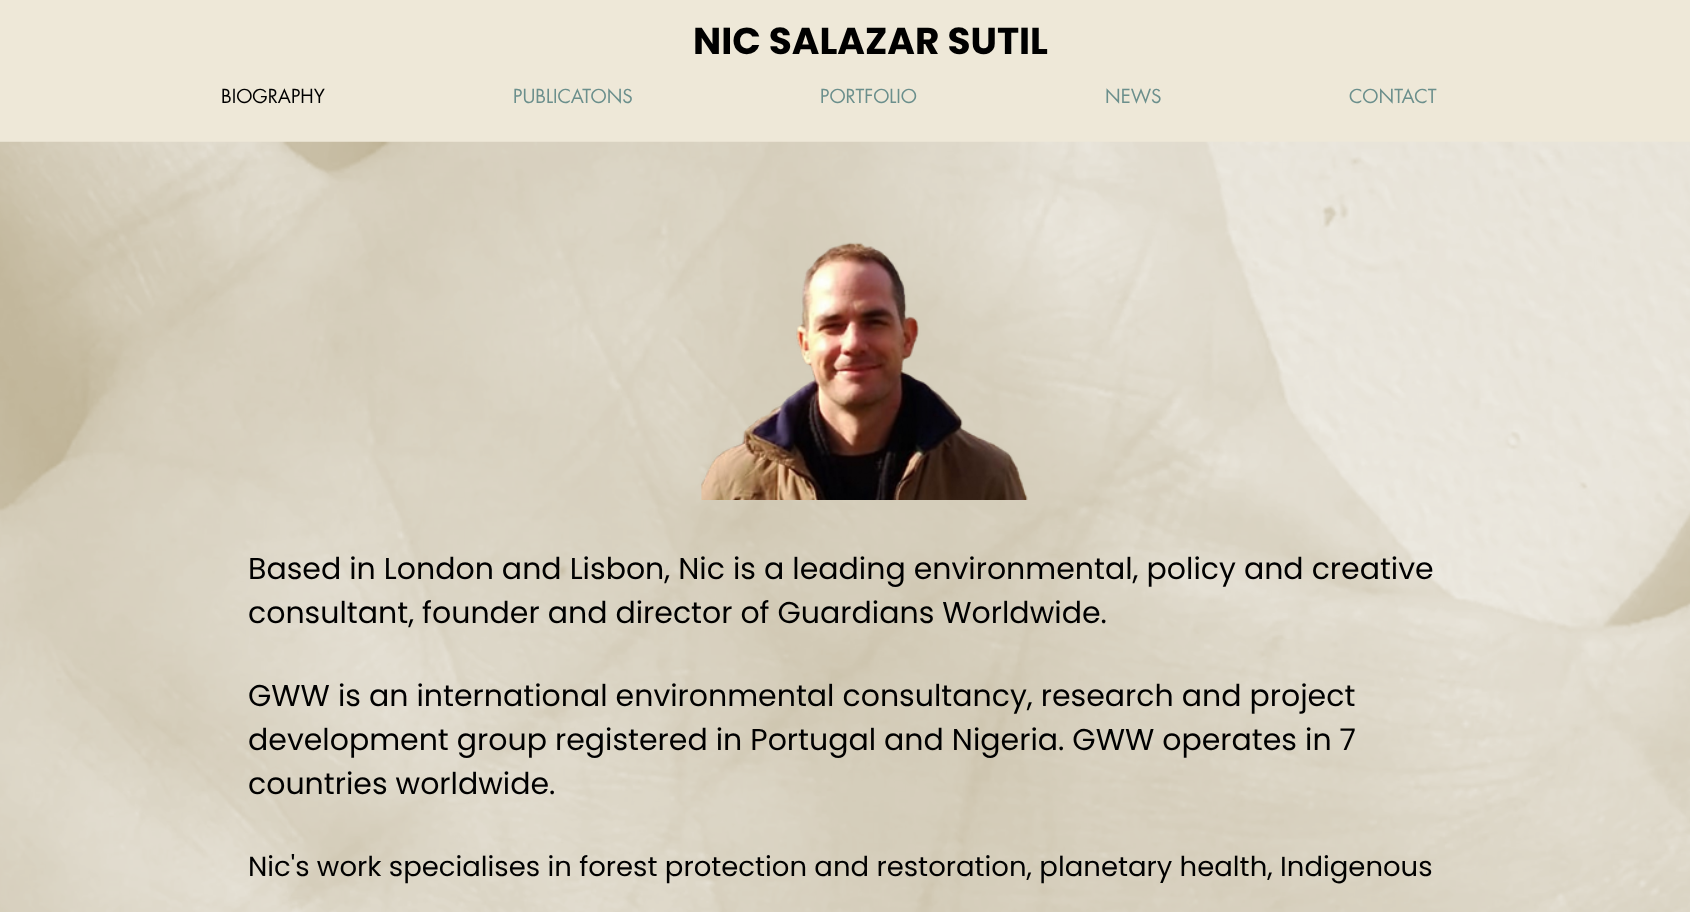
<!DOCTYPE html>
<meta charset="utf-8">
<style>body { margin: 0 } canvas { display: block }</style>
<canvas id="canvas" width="1690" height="912"></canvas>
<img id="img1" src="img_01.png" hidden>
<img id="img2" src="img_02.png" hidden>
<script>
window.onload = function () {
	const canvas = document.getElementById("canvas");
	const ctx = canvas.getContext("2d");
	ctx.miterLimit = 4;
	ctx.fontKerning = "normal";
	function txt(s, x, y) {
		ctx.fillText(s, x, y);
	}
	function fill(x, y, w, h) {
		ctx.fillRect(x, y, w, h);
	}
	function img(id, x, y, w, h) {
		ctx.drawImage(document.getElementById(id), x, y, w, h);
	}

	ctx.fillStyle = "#EEE8D8";
	fill(0, 0, 1690, 912);
	img("img1", 0, 141, 1690, 771);
	img("img2", 701, 242, 327, 258);
	ctx.font = "bold 37.5px Poppins";
	ctx.fillStyle = "#000000";
	txt("NIC SALAZAR SUTIL", 693, 54);
	ctx.font = "18.75px futura";
	txt("BIOGRAPHY", 221, 103);
	ctx.fillStyle = "#6B8F8C";
	txt("PUBLICATONS", 513, 103);
	txt("PORTFOLIO", 820, 103);
	txt("NEWS", 1105, 103);
	txt("CONTACT", 1349, 103);
	ctx.font = "30px Poppins";
	ctx.fillStyle = "#000000";
	txt("Based in London and Lisbon, Nic is a leading environmental, policy and creative", 248, 579);
	txt("consultant, founder and director of Guardians Worldwide.", 248, 623);
	txt("GWW is an international environmental consultancy, research and project", 248, 706);
	txt("development group registered in Portugal and Nigeria. GWW operates in 7", 248, 750);
	txt("countries worldwide.", 248, 794);
	ctx.font = "27.5px Poppins";
	txt("Nic's work specialises in forest protection and restoration, planetary health, Indigenous", 248, 876);
};
</script>
